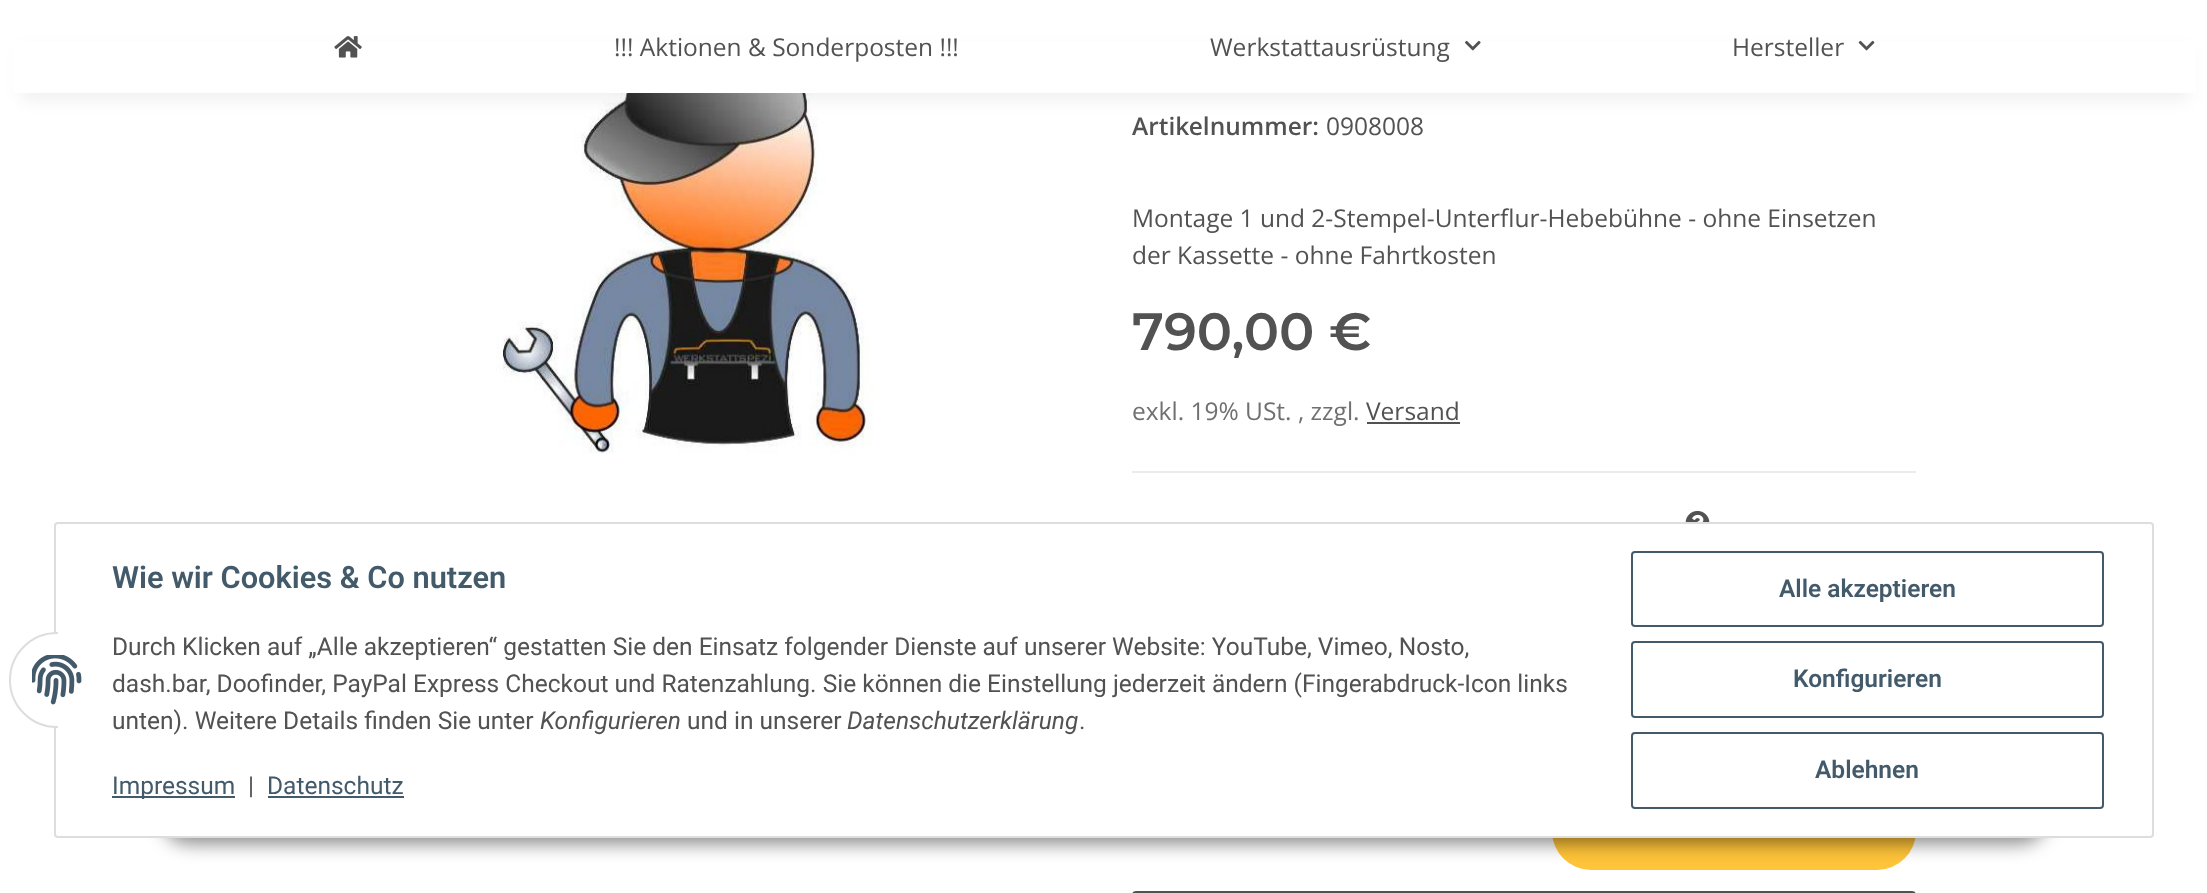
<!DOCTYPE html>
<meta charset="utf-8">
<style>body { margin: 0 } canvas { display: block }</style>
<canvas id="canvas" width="2207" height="893"></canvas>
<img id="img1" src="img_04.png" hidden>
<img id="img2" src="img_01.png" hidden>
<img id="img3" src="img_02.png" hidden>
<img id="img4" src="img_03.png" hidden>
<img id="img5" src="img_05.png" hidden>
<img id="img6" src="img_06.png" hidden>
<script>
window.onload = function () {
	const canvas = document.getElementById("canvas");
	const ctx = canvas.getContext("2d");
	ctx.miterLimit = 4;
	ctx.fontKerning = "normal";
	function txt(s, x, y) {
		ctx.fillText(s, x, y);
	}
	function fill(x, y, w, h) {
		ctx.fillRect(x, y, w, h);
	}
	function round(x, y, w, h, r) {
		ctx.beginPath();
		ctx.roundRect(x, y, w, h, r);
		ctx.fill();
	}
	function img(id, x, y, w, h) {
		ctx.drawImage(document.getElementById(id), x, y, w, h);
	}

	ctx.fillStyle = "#FFFFFF";
	fill(0, 0, 2207, 893);
	img("img1", 496, 93, 377, 361);
	ctx.fillStyle = "rgba(0, 0, 0, 0.06)";
	ctx.filter = "blur(8px)";
	ctx.beginPath();
	ctx.rect(21, 49, 2167, 51);
	ctx.fill();
	ctx.filter = "none";
	ctx.fillStyle = "#FFFFFF";
	fill(13, 41, 2183, 52);
	img("img2", 334, 36, 28, 22);
	img("img3", 1465, 40, 16, 11);
	img("img4", 1858, 40, 17, 11);
	ctx.fillStyle = "#525252";
	fill(1367, 422, 93, 2);
	ctx.fillStyle = "#EBEBEB";
	fill(1132, 471, 784, 2);
	img("img5", 1685, 510, 25, 12);
	ctx.fillStyle = "#FFC439";
	round(1552, 760, 364, 110, 39);
	ctx.beginPath();
	ctx.roundRect(1133, 892, 782, 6, 3);
	ctx.strokeStyle = "#525252";
	ctx.lineWidth = 2;
	ctx.stroke();
	ctx.fillStyle = "rgba(0, 0, 0, 0.45)";
	ctx.filter = "blur(9px)";
	ctx.beginPath();
	ctx.roundRect(161, 788, 1887, 56, 28);
	ctx.fill();
	ctx.filter = "none";
	ctx.fillStyle = "#FFFFFF";
	ctx.beginPath();
	ctx.roundRect(55, 523, 2098, 314, 3);
	ctx.fill();
	ctx.strokeStyle = "#DDDDDD";
	ctx.stroke();
	ctx.beginPath();
	ctx.arc(57, 680, 47, 0, Math.PI * 2);
	ctx.fill();
	ctx.stroke();
	fill(58, 632, 47, 96);
	img("img6", 32, 655, 50, 50);
	ctx.fillStyle = "#435A6B";
	fill(112, 796, 123, 2);
	fill(268, 796, 136, 2);
	ctx.beginPath();
	ctx.roundRect(1632, 552, 471, 74, 3);
	ctx.strokeStyle = "#435A6B";
	ctx.stroke();
	ctx.beginPath();
	ctx.roundRect(1632, 642, 471, 75, 3);
	ctx.stroke();
	ctx.beginPath();
	ctx.roundRect(1632, 733, 471, 75, 3);
	ctx.stroke();
	ctx.font = "24.5px Open Sans";
	ctx.fillStyle = "#525252";
	txt("!!! Aktionen & Sonderposten !!!", 614, 56);
	txt("Werkstattausrüstung", 1210, 56);
	txt("Hersteller", 1732, 56);
	ctx.font = "600 24.5px Open Sans";
	txt("Artikelnummer:", 1132, 135);
	ctx.font = "24.5px Open Sans";
	txt("0908008", 1326, 135);
	txt("Montage 1 und 2-Stempel-Unterflur-Hebebühne - ohne Einsetzen", 1132, 227);
	txt("der Kassette - ohne Fahrtkosten", 1132, 264);
	ctx.font = "600 52.5px Montserrat";
	txt("790,00 €", 1132, 350);
	ctx.font = "24.5px Open Sans";
	ctx.fillStyle = "#707070";
	txt("exkl. 19% USt. , zzgl.", 1132, 420);
	ctx.fillStyle = "#525252";
	txt("Versand", 1366, 420);
	ctx.font = "600 30.75px Roboto";
	ctx.fillStyle = "#435A6B";
	txt("Wie wir Cookies & Co nutzen", 112, 588);
	ctx.font = "24.5px Roboto";
	ctx.fillStyle = "#525252";
	txt("Durch Klicken auf „Alle akzeptieren“ gestatten Sie den Einsatz folgender Dienste auf unserer Website: YouTube, Vimeo, Nosto,", 112, 655);
	txt("dash.bar, Doofinder, PayPal Express Checkout und Ratenzahlung. Sie können die Einstellung jederzeit ändern (Fingerabdruck-Icon links", 112, 692);
	txt("unten). Weitere Details finden Sie unter", 112, 729);
	ctx.font = "italic 24.5px Roboto";
	txt("Konfigurieren", 540, 729);
	ctx.font = "24.5px Roboto";
	txt("und in unserer", 687, 729);
	ctx.font = "italic 24.5px Roboto";
	txt("Datenschutzerklärung", 847, 729);
	ctx.font = "24.5px Roboto";
	txt(".", 1079, 729);
	ctx.fillStyle = "#435A6B";
	txt("Impressum", 112, 794);
	ctx.fillStyle = "#525252";
	txt("|", 248, 794);
	ctx.fillStyle = "#435A6B";
	txt("Datenschutz", 267, 794);
	ctx.font = "600 24.5px Roboto";
	txt("Alle akzeptieren", 1779, 597);
	txt("Konfigurieren", 1793, 687);
	txt("Ablehnen", 1815, 778);
};
</script>
